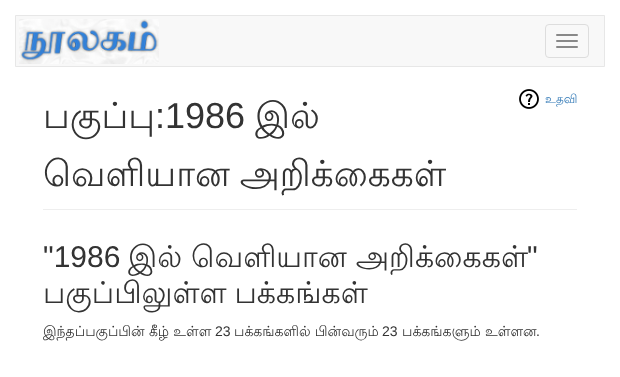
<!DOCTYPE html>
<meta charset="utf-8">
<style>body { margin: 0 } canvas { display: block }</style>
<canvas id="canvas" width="620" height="377"></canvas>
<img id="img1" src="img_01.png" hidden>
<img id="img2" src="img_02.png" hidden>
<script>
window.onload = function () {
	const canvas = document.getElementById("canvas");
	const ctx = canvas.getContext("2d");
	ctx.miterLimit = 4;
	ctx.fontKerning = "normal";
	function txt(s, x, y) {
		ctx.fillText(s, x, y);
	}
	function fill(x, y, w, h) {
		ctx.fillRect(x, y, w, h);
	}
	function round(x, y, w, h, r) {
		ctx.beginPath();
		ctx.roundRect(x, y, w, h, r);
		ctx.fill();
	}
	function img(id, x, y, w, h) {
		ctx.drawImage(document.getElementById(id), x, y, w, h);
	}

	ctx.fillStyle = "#FFFFFF";
	fill(0, 0, 620, 377);
	ctx.fillStyle = "#F8F8F8";
	ctx.beginPath();
	ctx.rect(15.5, 15.5, 589, 51);
	ctx.fill();
	ctx.strokeStyle = "#E7E7E7";
	ctx.stroke();
	img("img1", 19, 19, 140, 45);
	ctx.beginPath();
	ctx.roundRect(545.5, 24.5, 43, 33, 3.5);
	ctx.strokeStyle = "#DDDDDD";
	ctx.stroke();
	ctx.fillStyle = "#888888";
	round(556, 34, 22, 2, 1);
	round(556, 40, 22, 2, 1);
	round(556, 46, 22, 2, 1);
	ctx.fillStyle = "#EEEEEE";
	fill(43, 209, 534, 1);
	img("img2", 519, 89, 20, 20);
	ctx.font = "36px Lohit Tamil";
	ctx.fillStyle = "#333333";
	txt("பகுப்பு", 43, 128);
	ctx.font = "36px Liberation Sans";
	txt(":1986", 155, 128);
	ctx.font = "36px Lohit Tamil";
	txt("இல்", 255, 128);
	ctx.wordSpacing = "-1px";
	txt("வெளியான அறிக்கைகள்", 43, 186);
	ctx.wordSpacing = "0px";
	ctx.font = "12px Lohit Tamil";
	ctx.fillStyle = "#337AB7";
	txt("உதவி", 545, 103);
	ctx.font = "30px Liberation Sans";
	ctx.fillStyle = "#333333";
	txt("\"1986", 43, 267);
	ctx.font = "30px Lohit Tamil";
	txt("இல் வெளியான அறிக்கைகள்", 128, 267);
	ctx.font = "30px Liberation Sans";
	txt("\"", 527, 267);
	ctx.wordSpacing = "-1px";
	ctx.font = "30px Lohit Tamil";
	txt("பகுப்பிலுள்ள பக்கங்கள்", 43, 303);
	ctx.wordSpacing = "0px";
	ctx.font = "14px Lohit Tamil";
	txt("இந்தப்பகுப்பின் கீழ் உள்ள", 43, 336);
	ctx.font = "14px Liberation Sans";
	txt("23", 215, 336);
	ctx.font = "14px Lohit Tamil";
	txt("பக்கங்களில் பின்வரும்", 234, 336);
	ctx.font = "14px Liberation Sans";
	txt("23", 382, 336);
	ctx.font = "14px Lohit Tamil";
	txt("பக்கங்களும் உள்ளன", 402, 336);
	ctx.font = "14px Liberation Sans";
	txt(".", 536, 336);
};
</script>
